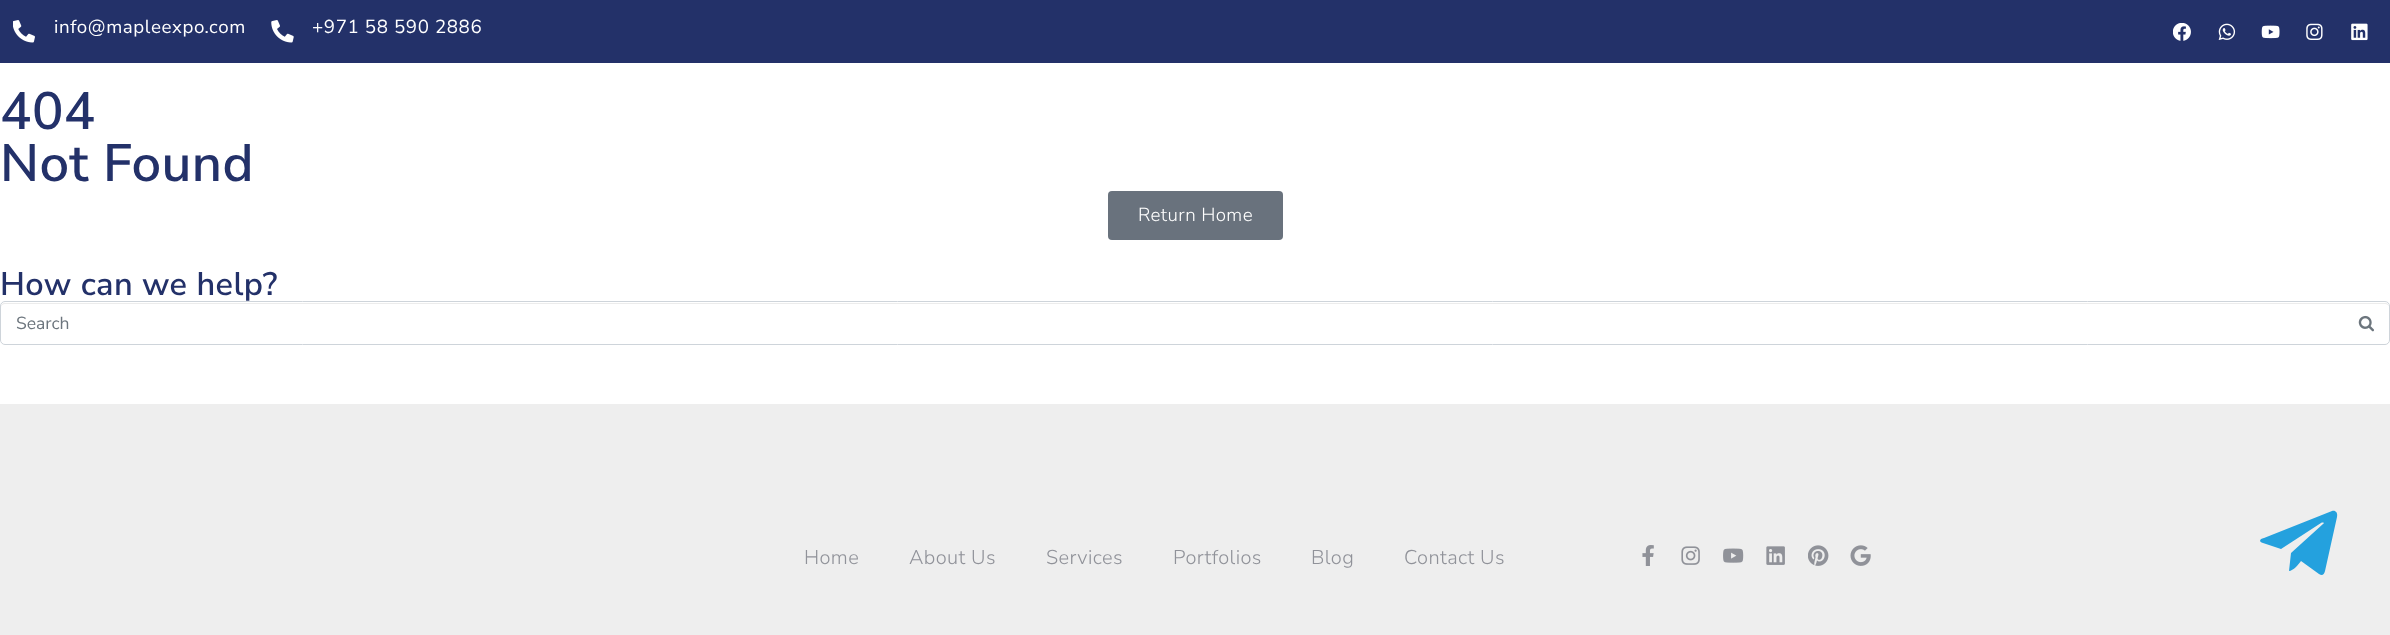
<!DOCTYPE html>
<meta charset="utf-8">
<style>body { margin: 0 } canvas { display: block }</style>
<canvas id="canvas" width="2390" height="635"></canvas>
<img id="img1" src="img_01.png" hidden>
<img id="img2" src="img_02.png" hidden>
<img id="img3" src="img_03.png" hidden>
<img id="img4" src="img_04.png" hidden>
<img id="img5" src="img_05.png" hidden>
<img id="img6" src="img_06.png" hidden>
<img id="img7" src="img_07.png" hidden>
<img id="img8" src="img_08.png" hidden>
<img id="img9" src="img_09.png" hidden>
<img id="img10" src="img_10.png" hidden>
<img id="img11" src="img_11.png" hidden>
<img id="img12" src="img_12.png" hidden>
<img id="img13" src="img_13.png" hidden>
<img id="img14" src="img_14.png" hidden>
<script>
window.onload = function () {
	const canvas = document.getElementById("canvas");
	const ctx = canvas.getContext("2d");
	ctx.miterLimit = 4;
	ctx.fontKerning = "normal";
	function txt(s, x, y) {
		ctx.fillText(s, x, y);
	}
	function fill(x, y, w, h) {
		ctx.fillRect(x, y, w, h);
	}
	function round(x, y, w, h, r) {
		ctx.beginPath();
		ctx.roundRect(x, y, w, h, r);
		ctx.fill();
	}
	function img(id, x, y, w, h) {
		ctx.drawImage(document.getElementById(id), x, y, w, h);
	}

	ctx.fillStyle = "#FFFFFF";
	fill(0, 0, 2390, 635);
	ctx.fillStyle = "#233169";
	fill(0, 0, 2390, 63);
	img("img1", 13, 20, 22, 23);
	img("img2", 271, 20, 23, 23);
	img("img3", 2173, 23, 18, 18);
	img("img4", 2218, 23, 18, 17);
	img("img5", 2261, 25, 19, 14);
	img("img6", 2306, 23, 17, 17);
	img("img7", 2351, 23, 17, 18);
	ctx.fillStyle = "#EEEEEE";
	fill(0, 404, 2390, 231);
	ctx.fillStyle = "#24A1DE";
	ctx.beginPath();
	ctx.moveTo(2337, 517);
	ctx.lineTo(2325, 571);
	ctx.bezierCurveTo(2324, 575, 2322, 576, 2319, 574);
	ctx.lineTo(2301, 561);
	ctx.bezierCurveTo(2299, 564, 2293, 571, 2289, 571);
	ctx.lineTo(2291, 553);
	ctx.lineTo(2323, 524);
	ctx.bezierCurveTo(2325, 523, 2323, 522, 2321, 523);
	ctx.lineTo(2281, 549);
	ctx.lineTo(2263, 543);
	ctx.bezierCurveTo(2259, 542, 2259, 539, 2264, 538);
	ctx.lineTo(2332, 511);
	ctx.bezierCurveTo(2335, 510, 2338, 512, 2337, 517);
	ctx.closePath();
	ctx.fill();
	ctx.fillStyle = "#69727D";
	round(1108, 191, 175, 49, 4);
	ctx.fillStyle = "#ECECEC";
	ctx.beginPath();
	ctx.moveTo(5, 304);
	ctx.lineTo(2385, 304);
	ctx.bezierCurveTo(2387, 304, 2389, 305, 2389, 308);
	ctx.bezierCurveTo(2389, 305, 2388, 303, 2385, 303);
	ctx.lineTo(5, 303);
	ctx.bezierCurveTo(2, 303, 1, 305, 1, 308);
	ctx.bezierCurveTo(1, 305, 3, 304, 5, 304);
	ctx.closePath();
	ctx.fill();
	ctx.beginPath();
	ctx.roundRect(0.5, 301.5, 2389, 43, 4.5);
	ctx.strokeStyle = "#CED4DA";
	ctx.stroke();
	img("img8", 2358, 315, 16, 17);
	img("img9", 1642, 545, 12, 21);
	img("img10", 1681, 546, 19, 19);
	img("img11", 1723, 548, 21, 15);
	img("img12", 1766, 546, 19, 19);
	img("img13", 1808, 545, 21, 21);
	img("img14", 1850, 545, 21, 21);
	ctx.letterSpacing = "0.6px";
	ctx.font = "18.75px Nunito Sans";
	ctx.fillStyle = "#FFFFFF";
	txt("info@mapleexpo.com", 54, 33);
	txt("+971 58 590 2886", 312, 33);
	ctx.letterSpacing = "0.4px";
	ctx.font = "600 52.5px Nunito Sans";
	ctx.fillStyle = "#233169";
	txt("404", 0, 129);
	txt("Not Found", 0, 181);
	ctx.font = "300 18.75px Nunito Sans";
	ctx.fillStyle = "#FFFFFF";
	txt("Return Home", 1138, 221);
	ctx.font = "600 32.5px Nunito Sans";
	ctx.fillStyle = "#233169";
	txt("How can we help?", 0, 295);
	ctx.letterSpacing = "0px";
	ctx.font = "17.5px Nunito Sans";
	ctx.fillStyle = "#6C757D";
	txt("Search", 16, 329);
	ctx.letterSpacing = "0.4px";
	ctx.font = "300 20px Nunito Sans";
	ctx.fillStyle = "#909299";
	txt("Home", 804, 564);
	txt("About Us", 909, 564);
	txt("Services", 1046, 564);
	txt("Portfolios", 1173, 564);
	txt("Blog", 1311, 564);
	txt("Contact Us", 1404, 564);
};
</script>
